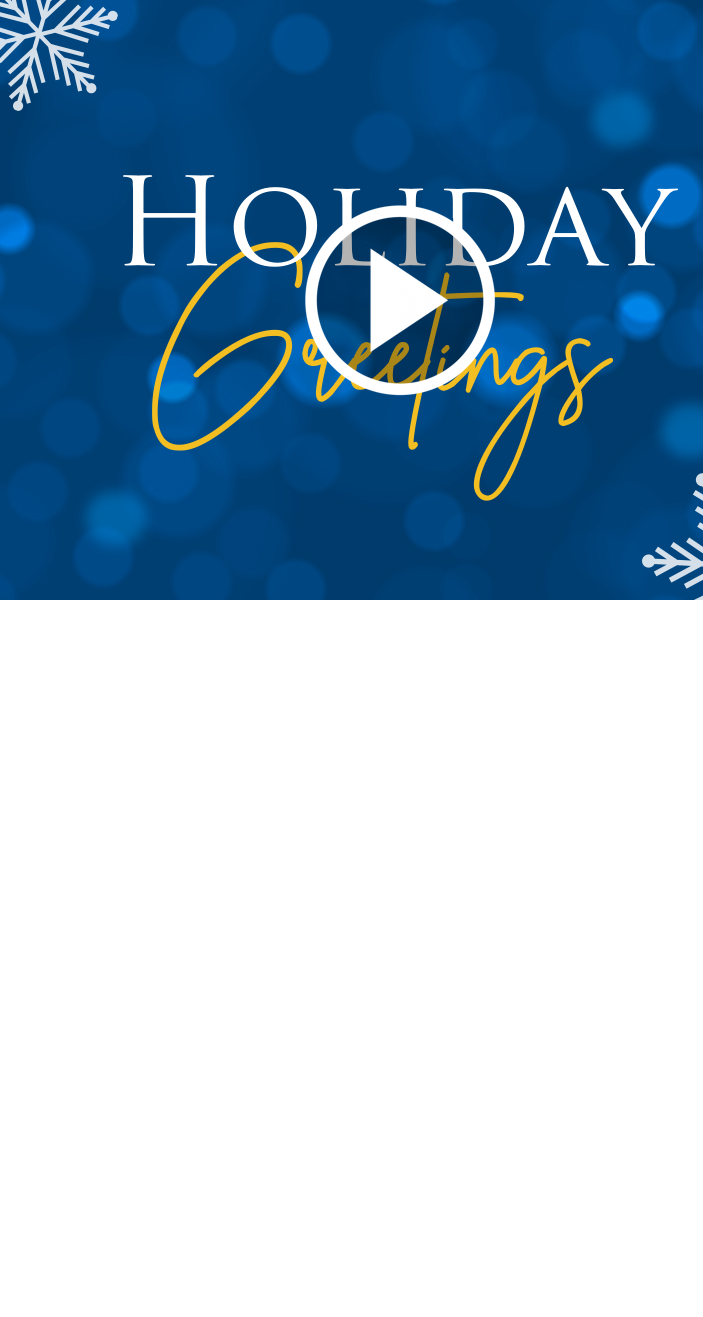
<!DOCTYPE html>
<meta charset="utf-8">
<style>body { margin: 0 } canvas { display: block }</style>
<canvas id="canvas" width="703" height="1317"></canvas>
<img id="img1" src="img_01.png" hidden>
<img id="img2" src="img_02.png" hidden>
<img id="img3" src="img_05.png" hidden>
<img id="img4" src="img_03.png" hidden>
<img id="img5" src="img_04.png" hidden>
<img id="img6" src="img_06.png" hidden>
<script>
window.onload = function () {
	const canvas = document.getElementById("canvas");
	const ctx = canvas.getContext("2d");
	ctx.miterLimit = 4;
	ctx.fontKerning = "normal";
	function fill(x, y, w, h) {
		ctx.fillRect(x, y, w, h);
	}
	function img(id, x, y, w, h) {
		ctx.drawImage(document.getElementById(id), x, y, w, h);
	}

	ctx.fillStyle = "#FFFFFF";
	fill(0, 0, 703, 1317);
	img("img1", 0, 0, 703, 600);
	img("img2", 0, 0, 118, 111);
	ctx.fillStyle = "rgba(0, 163, 255, 0.37)";
	ctx.filter = "blur(6.5px)";
	ctx.beginPath();
	ctx.roundRect(592, 93, 60, 53, 26.5);
	ctx.fill();
	ctx.filter = "none";
	ctx.filter = "blur(6.5px)";
	ctx.beginPath();
	ctx.roundRect(86, 492, 60, 53, 26.5);
	ctx.fill();
	ctx.filter = "none";
	img("img3", 152, 242, 461, 259);
	img("img4", 123, 175, 555, 92);
	img("img5", 305, 205, 191, 191);
	ctx.filter = "blur(6.5px)";
	ctx.beginPath();
	ctx.roundRect(661, 404, 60, 53, 26.5);
	ctx.fill();
	ctx.filter = "none";
	img("img6", 642, 473, 61, 127);
};
</script>
